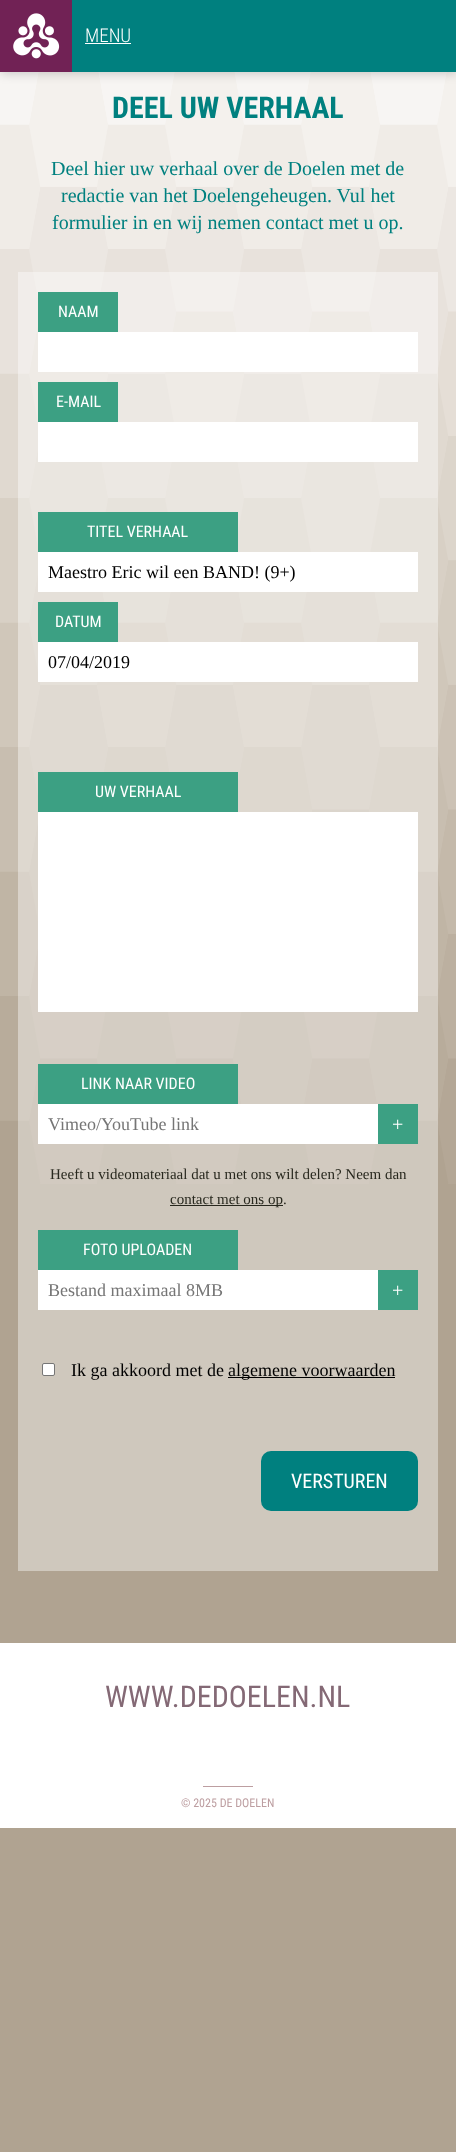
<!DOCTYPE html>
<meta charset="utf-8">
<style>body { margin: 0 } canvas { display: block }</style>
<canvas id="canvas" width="456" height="2152"></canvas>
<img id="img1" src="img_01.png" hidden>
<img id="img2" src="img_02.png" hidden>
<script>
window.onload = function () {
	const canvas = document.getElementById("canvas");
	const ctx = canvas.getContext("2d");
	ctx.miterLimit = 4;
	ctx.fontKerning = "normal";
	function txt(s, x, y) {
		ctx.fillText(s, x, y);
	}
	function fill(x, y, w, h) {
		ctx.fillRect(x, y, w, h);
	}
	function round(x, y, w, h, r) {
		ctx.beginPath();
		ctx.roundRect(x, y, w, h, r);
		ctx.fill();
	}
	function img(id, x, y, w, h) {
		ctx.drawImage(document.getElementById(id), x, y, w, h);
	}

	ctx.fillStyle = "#B0A391";
	fill(0, 0, 456, 2152);
	img("img1", 0, 72, 456, 1112);
	ctx.fillStyle = "rgba(0, 0, 0, 0.2)";
	ctx.filter = "blur(5.5px)";
	ctx.beginPath();
	ctx.rect(1, 1, 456, 72);
	ctx.fill();
	ctx.filter = "none";
	ctx.fillStyle = "#712255";
	fill(0, 0, 72, 72);
	img("img2", 13, 13, 47, 46);
	ctx.fillStyle = "#00807F";
	fill(72, 0, 384, 72);
	ctx.fillStyle = "#FFFFFF";
	fill(85, 43, 46, 1);
	ctx.fillStyle = "rgba(255, 255, 255, 0.4)";
	fill(18, 272, 420, 1299);
	ctx.fillStyle = "#3CA083";
	fill(38, 292, 80, 40);
	ctx.fillStyle = "#FFFFFF";
	fill(38, 332, 380, 40);
	ctx.fillStyle = "#3CA083";
	fill(38, 382, 80, 40);
	ctx.fillStyle = "#FFFFFF";
	fill(38, 422, 380, 40);
	ctx.fillStyle = "#3CA083";
	fill(38, 512, 200, 40);
	ctx.fillStyle = "#FFFFFF";
	fill(38, 552, 380, 40);
	ctx.fillStyle = "#3CA083";
	fill(38, 602, 80, 40);
	ctx.fillStyle = "#FFFFFF";
	fill(38, 642, 380, 40);
	ctx.fillStyle = "#3CA083";
	fill(38, 772, 200, 40);
	ctx.fillStyle = "#FFFFFF";
	fill(38, 812, 380, 200);
	ctx.fillStyle = "#3CA083";
	fill(38, 1064, 200, 40);
	ctx.fillStyle = "#FFFFFF";
	fill(38, 1104, 340, 40);
	ctx.fillStyle = "#3CA083";
	fill(378, 1104, 40, 40);
	ctx.fillStyle = "#28281E";
	fill(170, 1205, 113, 1);
	ctx.fillStyle = "#3CA083";
	fill(38, 1230, 200, 40);
	ctx.fillStyle = "#FFFFFF";
	fill(38, 1270, 340, 40);
	ctx.fillStyle = "#3CA083";
	fill(378, 1270, 40, 40);
	ctx.fillStyle = "#FFFFFF";
	ctx.beginPath();
	ctx.roundRect(42.5, 1363.5, 12, 12, 1.5);
	ctx.fill();
	ctx.strokeStyle = "#767676";
	ctx.stroke();
	ctx.fillStyle = "#000000";
	fill(228, 1377, 167, 1);
	ctx.fillStyle = "#00807F";
	round(261, 1451, 157, 60, 10);
	ctx.fillStyle = "#FFFFFF";
	fill(0, 1643, 456, 185);
	ctx.fillStyle = "#BD9EA1";
	fill(203, 1786, 50, 1);
	ctx.font = "300 19px Roboto Condensed";
	ctx.fillStyle = "#FFFFFF";
	txt("MENU", 85, 42);
	ctx.font = "bold 30px Roboto Condensed";
	ctx.fillStyle = "#00807F";
	txt("DEEL UW VERHAAL", 112, 118);
	ctx.font = "20px Liberation Serif";
	txt("Deel hier uw verhaal over de Doelen met de", 51, 175);
	txt("redactie van het Doelengeheugen. Vul het", 61, 202);
	txt("formulier in en wij nemen contact met u op.", 52, 229);
	ctx.font = "16px Roboto Condensed";
	ctx.fillStyle = "#FFFFFF";
	txt("NAAM", 58, 317);
	txt("E-MAIL", 56, 407);
	txt("TITEL VERHAAL", 87, 537);
	ctx.font = "18px Liberation Serif";
	ctx.fillStyle = "#000000";
	txt("Maestro Eric wil een BAND! (9+)", 48, 578);
	ctx.font = "16px Roboto Condensed";
	ctx.fillStyle = "#FFFFFF";
	txt("DATUM", 55, 627);
	ctx.font = "18px Liberation Serif";
	ctx.fillStyle = "#000000";
	txt("07/04/2019", 48, 668);
	ctx.font = "16px Roboto Condensed";
	ctx.fillStyle = "#FFFFFF";
	txt("UW VERHAAL", 95, 797);
	txt("LINK NAAR VIDEO", 81, 1089);
	ctx.font = "18px Liberation Serif";
	ctx.fillStyle = "#757575";
	txt("Vimeo/YouTube link", 48, 1130);
	ctx.font = "20px Liberation Serif";
	ctx.fillStyle = "#FFFFFF";
	txt("+", 392, 1131);
	ctx.font = "15px Liberation Serif";
	ctx.fillStyle = "#28281E";
	txt("Heeft u videomateriaal dat u met ons wilt delen? Neem dan", 50, 1179);
	txt("contact met ons op", 170, 1204);
	txt(".", 283, 1204);
	ctx.font = "16px Roboto Condensed";
	ctx.fillStyle = "#FFFFFF";
	txt("FOTO UPLOADEN", 83, 1255);
	ctx.font = "18px Liberation Serif";
	ctx.fillStyle = "#757575";
	txt("Bestand maximaal 8MB", 48, 1296);
	ctx.font = "20px Liberation Serif";
	ctx.fillStyle = "#FFFFFF";
	txt("+", 392, 1297);
	ctx.font = "18px Liberation Serif";
	ctx.fillStyle = "#000000";
	txt("Ik ga akkoord met de", 71, 1376);
	txt("algemene voorwaarden", 228, 1376);
	ctx.font = "20px Roboto Condensed";
	ctx.fillStyle = "#FFFFFF";
	txt("VERSTUREN", 291, 1488);
	ctx.font = "30px Roboto Condensed";
	ctx.fillStyle = "#846975";
	txt("WWW.DEDOELEN.NL", 105, 1707);
	ctx.font = "12px Roboto Condensed";
	ctx.fillStyle = "#BD9EA1";
	txt("© 2025 DE DOELEN", 181, 1807);
};
</script>
